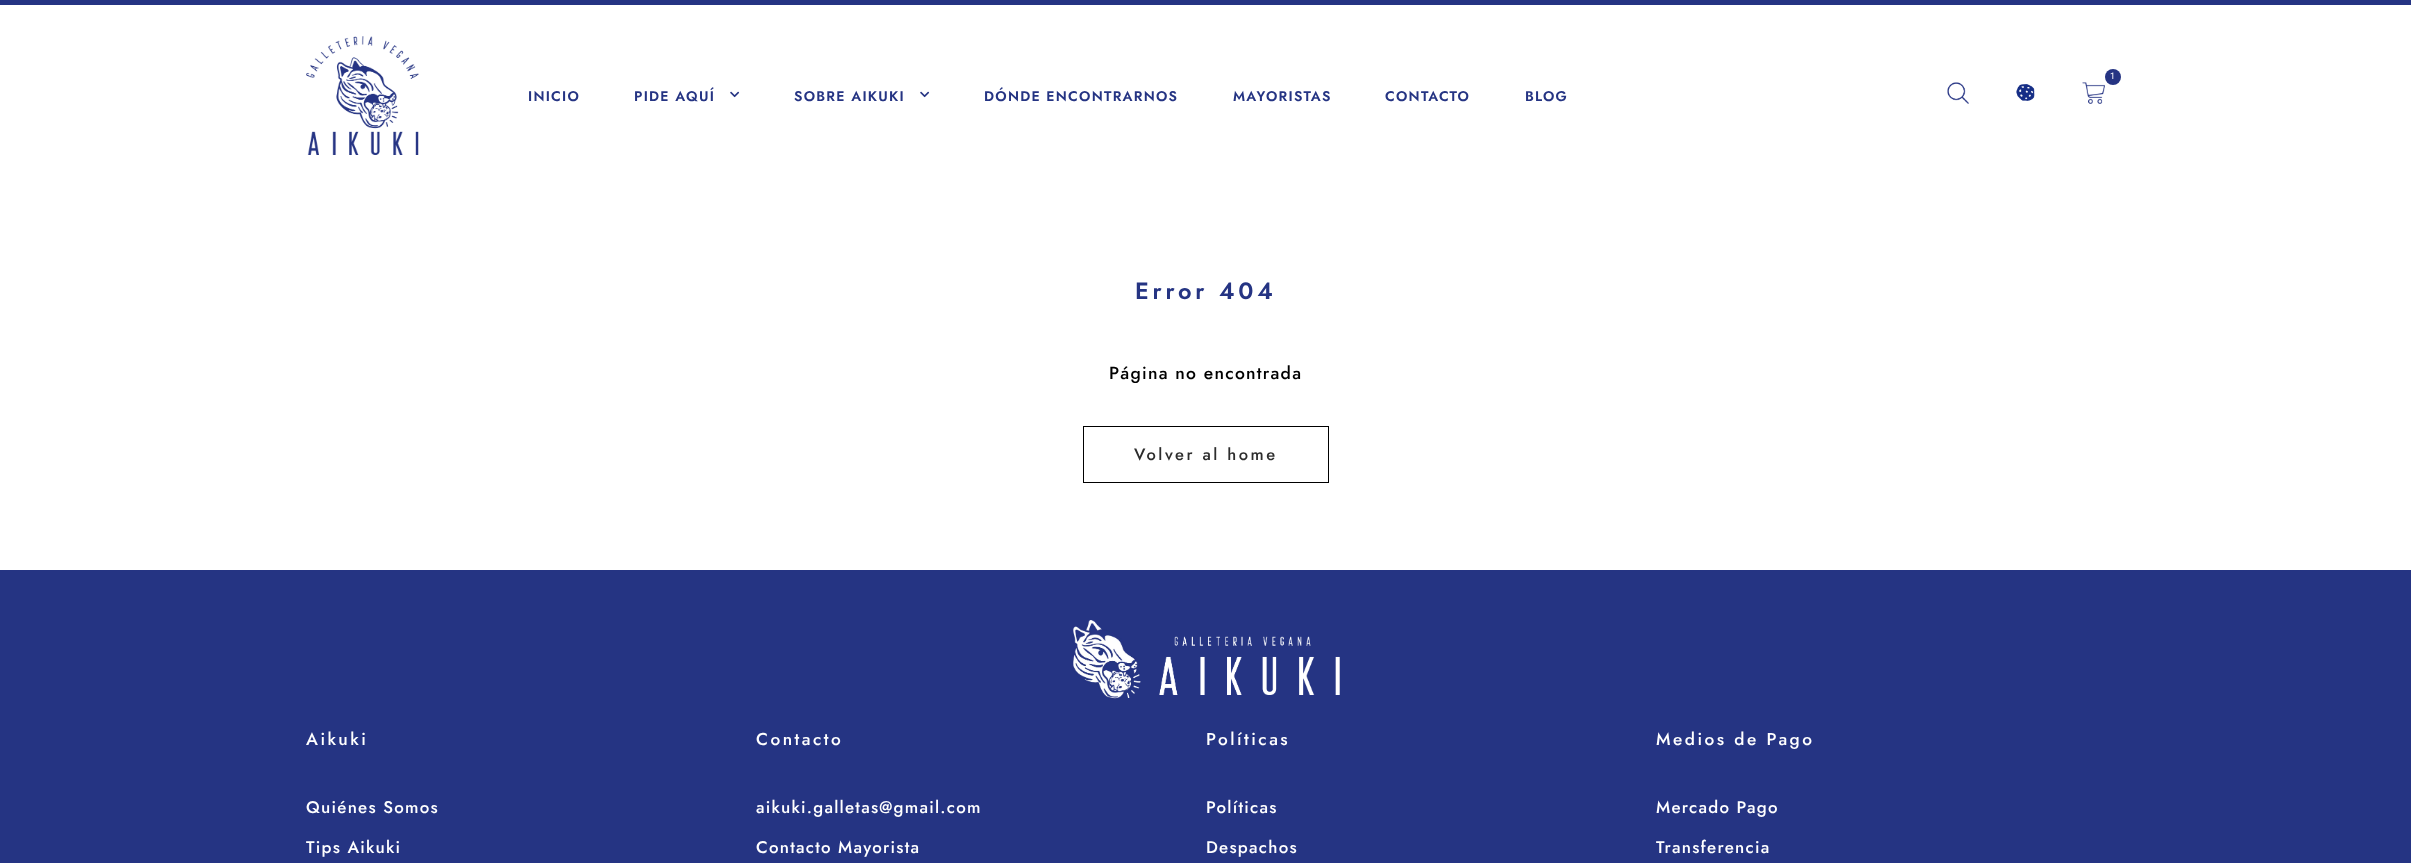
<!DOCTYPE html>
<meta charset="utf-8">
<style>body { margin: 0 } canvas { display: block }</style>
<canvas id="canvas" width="2411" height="863"></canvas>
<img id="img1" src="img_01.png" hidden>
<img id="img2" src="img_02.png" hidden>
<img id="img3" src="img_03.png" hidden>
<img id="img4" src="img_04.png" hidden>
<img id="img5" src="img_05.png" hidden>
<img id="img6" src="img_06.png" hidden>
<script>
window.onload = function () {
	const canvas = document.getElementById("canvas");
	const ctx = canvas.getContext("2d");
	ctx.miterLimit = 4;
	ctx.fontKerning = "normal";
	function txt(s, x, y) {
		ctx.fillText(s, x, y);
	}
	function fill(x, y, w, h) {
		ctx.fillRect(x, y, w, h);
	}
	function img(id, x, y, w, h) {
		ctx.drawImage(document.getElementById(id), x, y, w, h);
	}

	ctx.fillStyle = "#FFFFFF";
	fill(0, 0, 2411, 863);
	ctx.fillStyle = "#253483";
	fill(0, 0, 2411, 5);
	img("img1", 306, 36, 113, 119);
	ctx.beginPath();
	ctx.arc(2113, 77, 8, 0, Math.PI * 2);
	ctx.fill();
	img("img2", 2082, 82, 23, 22);
	img("img3", 1947, 82, 22, 22);
	img("img4", 2016, 84, 19, 17);
	img("img5", 730, 91, 10, 7);
	img("img5", 920, 91, 10, 7);
	ctx.strokeStyle = "#000000";
	ctx.strokeRect(1083.5, 426.5, 245, 56);
	fill(0, 570, 2411, 293);
	img("img6", 1072, 620, 268, 80);
	ctx.letterSpacing = "1px";
	ctx.font = "9px Roboto";
	ctx.fillStyle = "#FFFFFF";
	txt("1", 2110, 79);
	ctx.letterSpacing = "1.25px";
	ctx.font = "600 14px Jost";
	ctx.fillStyle = "#253483";
	txt("INICIO", 528, 101);
	txt("PIDE AQUÍ", 634, 101);
	txt("SOBRE AIKUKI", 794, 101);
	txt("DÓNDE ENCONTRARNOS", 984, 101);
	txt("MAYORISTAS", 1233, 101);
	txt("CONTACTO", 1385, 101);
	txt("BLOG", 1525, 101);
	ctx.letterSpacing = "3.75px";
	ctx.font = "600 23.5px Jost";
	txt("Error 404", 1135, 299);
	ctx.letterSpacing = "1.25px";
	ctx.font = "500 17.5px Jost";
	ctx.fillStyle = "#000000";
	txt("Página no encontrada", 1109, 379);
	ctx.letterSpacing = "2.5px";
	ctx.font = "500 16.5px Jost";
	ctx.fillStyle = "#2D2D2D";
	txt("Volver al home", 1134, 460);
	ctx.font = "500 17.25px Jost";
	ctx.fillStyle = "#FFFFFF";
	txt("Aikuki", 306, 745);
	ctx.letterSpacing = "1.25px";
	ctx.font = "500 16.9px Jost";
	txt("Quiénes Somos", 306, 813);
	txt("Tips Aikuki", 306, 853);
	ctx.letterSpacing = "2.5px";
	ctx.font = "500 17.25px Jost";
	txt("Contacto", 756, 745);
	ctx.letterSpacing = "1.25px";
	ctx.font = "500 16.9px Jost";
	txt("aikuki.galletas@gmail.com", 756, 813);
	txt("Contacto Mayorista", 756, 853);
	ctx.letterSpacing = "2.5px";
	ctx.font = "500 17.25px Jost";
	txt("Políticas", 1206, 745);
	ctx.letterSpacing = "1.25px";
	ctx.font = "500 16.9px Jost";
	txt("Políticas", 1206, 813);
	txt("Despachos", 1206, 853);
	ctx.letterSpacing = "2.5px";
	ctx.font = "500 17.25px Jost";
	txt("Medios de Pago", 1656, 745);
	ctx.letterSpacing = "1.25px";
	ctx.font = "500 16.9px Jost";
	txt("Mercado Pago", 1656, 813);
	txt("Transferencia", 1656, 853);
};
</script>
